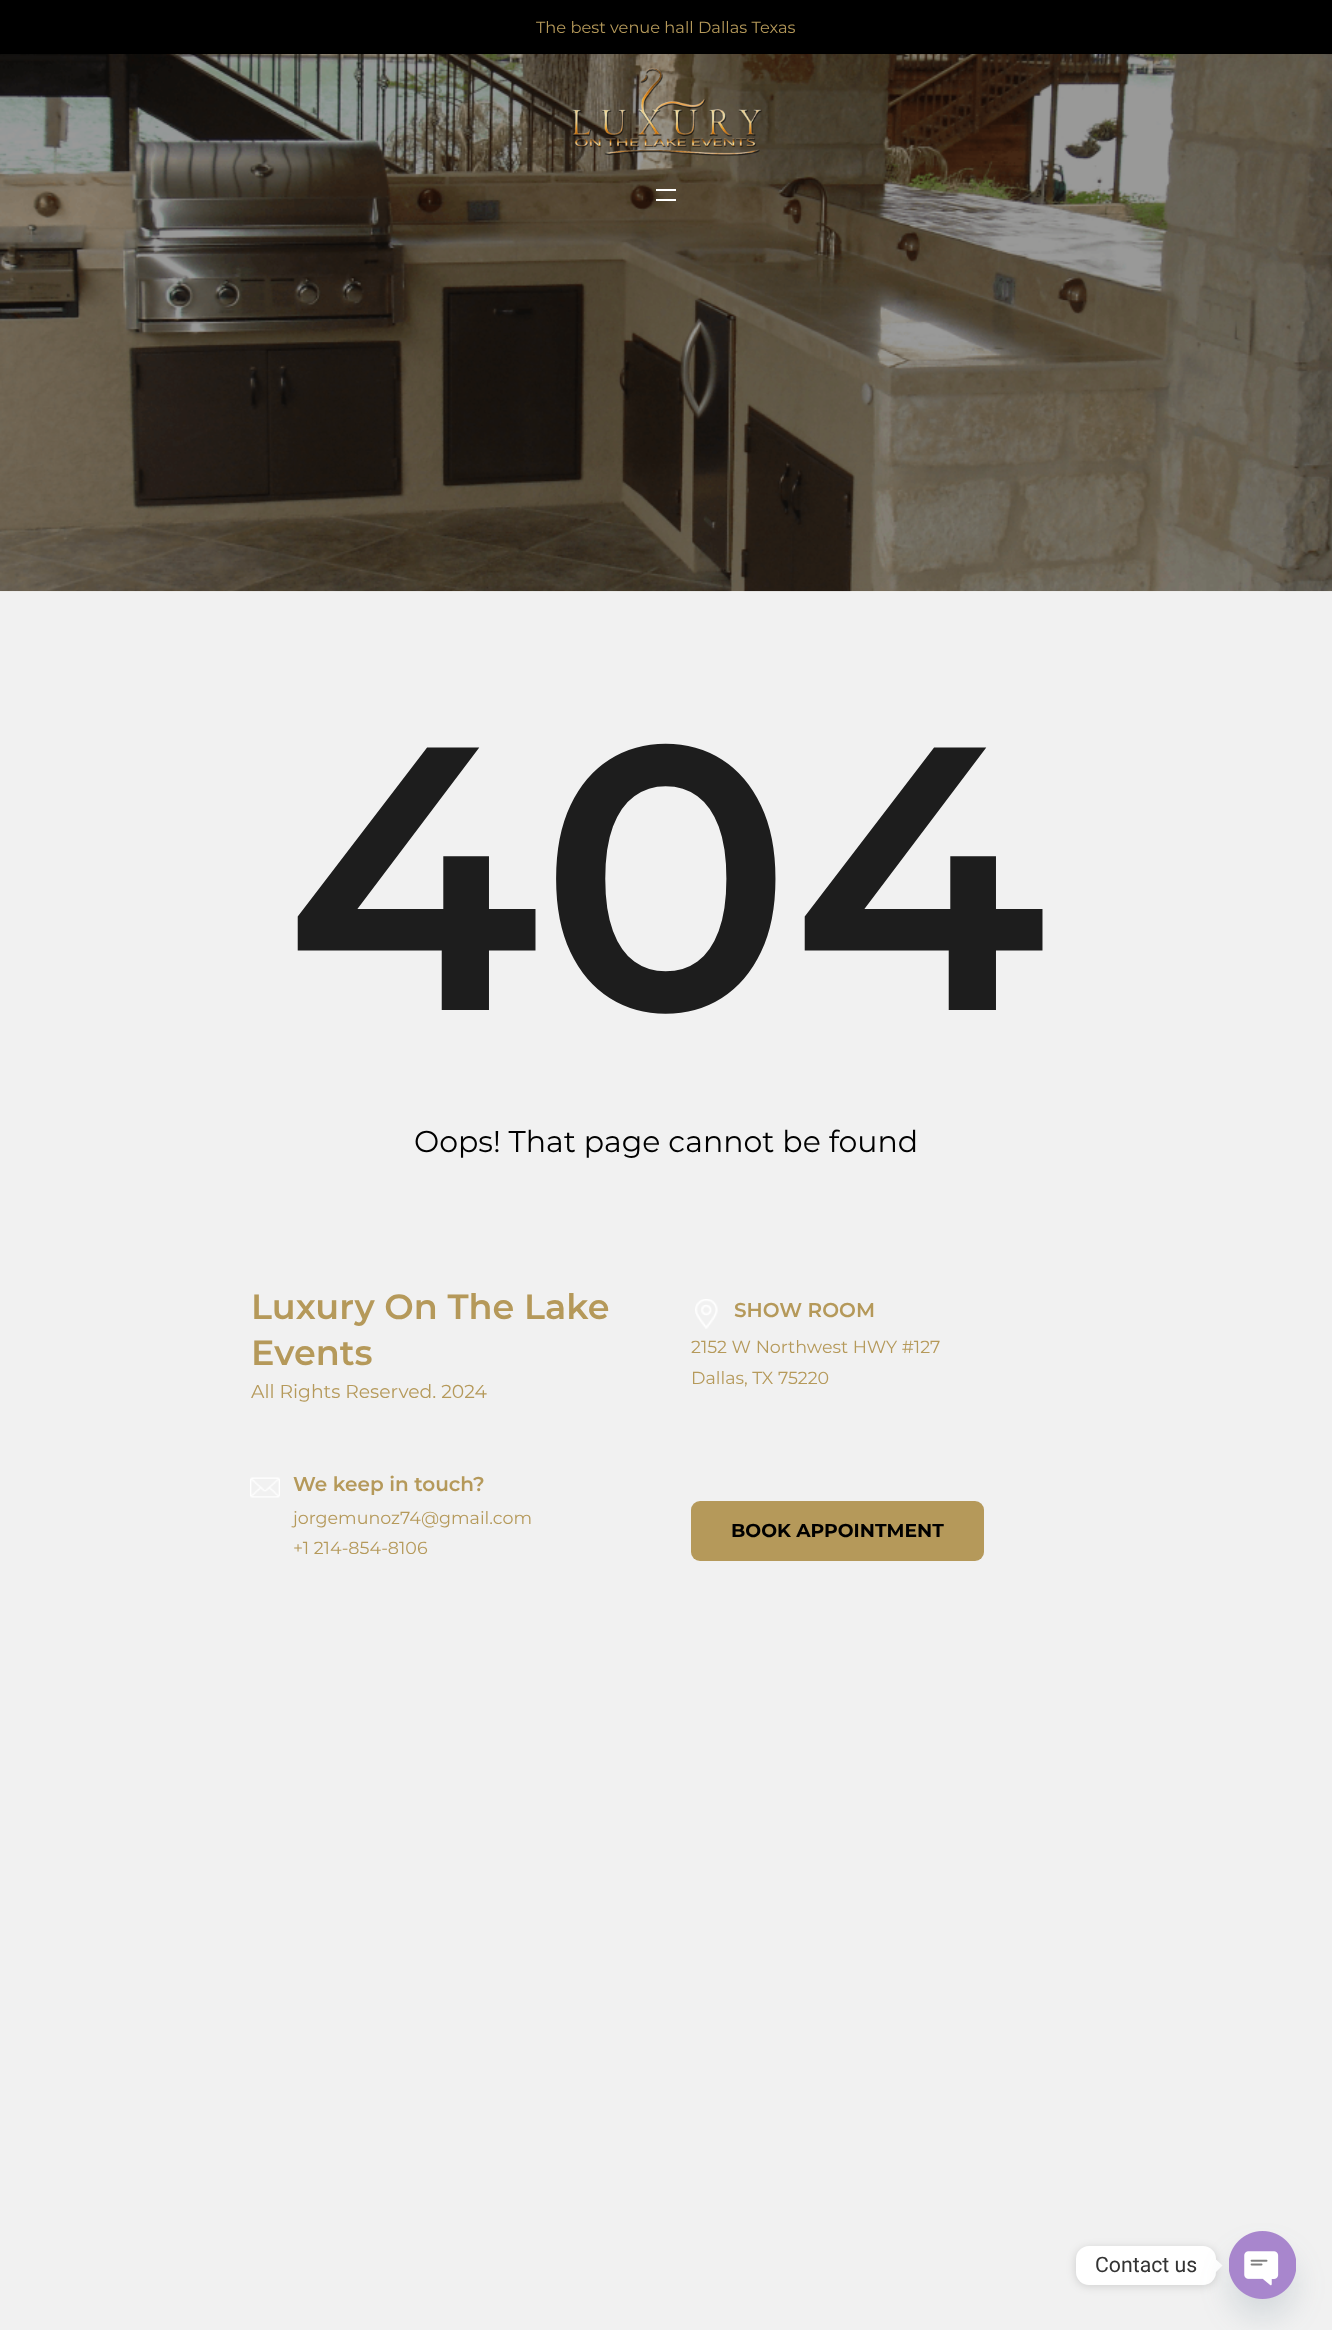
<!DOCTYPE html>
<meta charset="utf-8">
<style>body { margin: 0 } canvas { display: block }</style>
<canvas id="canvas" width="1332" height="2330"></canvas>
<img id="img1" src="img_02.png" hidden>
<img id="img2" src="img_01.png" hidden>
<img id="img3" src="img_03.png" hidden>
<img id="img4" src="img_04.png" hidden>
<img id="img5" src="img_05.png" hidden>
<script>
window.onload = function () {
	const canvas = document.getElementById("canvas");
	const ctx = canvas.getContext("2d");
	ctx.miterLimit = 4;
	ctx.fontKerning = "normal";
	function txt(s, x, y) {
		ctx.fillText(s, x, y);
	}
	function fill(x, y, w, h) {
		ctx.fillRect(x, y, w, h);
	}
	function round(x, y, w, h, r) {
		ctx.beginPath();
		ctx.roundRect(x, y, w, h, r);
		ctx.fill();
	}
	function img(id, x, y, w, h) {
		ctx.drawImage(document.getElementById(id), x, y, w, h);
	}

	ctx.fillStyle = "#F1F1F1";
	fill(0, 0, 1332, 2330);
	ctx.fillStyle = "#000000";
	fill(0, 0, 1332, 54);
	img("img1", 0, 54, 1332, 538);
	img("img2", 572, 68, 190, 88);
	ctx.fillStyle = "#FFFFFF";
	fill(656, 189, 20, 2);
	fill(656, 199, 20, 2);
	img("img3", 695, 1299, 23, 30);
	img("img4", 250, 1477, 30, 21);
	ctx.fillStyle = "#B5995A";
	round(691, 1501, 293, 60, 9);
	ctx.fillStyle = "rgba(0, 0, 0, 0.15)";
	ctx.filter = "blur(5px)";
	ctx.beginPath();
	ctx.roundRect(1076, 2248, 140, 38, 13);
	ctx.fill();
	ctx.filter = "none";
	ctx.fillStyle = "#FFFFFF";
	round(1076, 2246, 140, 39, 13);
	ctx.beginPath();
	ctx.moveTo(1216, 2272);
	ctx.lineTo(1216, 2259.5);
	ctx.lineTo(1222.5, 2265.5);
	ctx.closePath();
	ctx.fill();
	ctx.fillStyle = "rgba(73, 104, 126, 0.16)";
	ctx.filter = "blur(15px)";
	ctx.beginPath();
	ctx.roundRect(1229, 2251, 67, 68, 33.5);
	ctx.fill();
	ctx.filter = "none";
	img("img5", 1229, 2231, 67, 68);
	ctx.font = "16.25px Montserrat";
	ctx.fillStyle = "#B5995A";
	txt("The best venue hall Dallas Texas", 536, 33);
	ctx.font = "600 375px Montserrat";
	ctx.fillStyle = "#1D1D1D";
	txt("404", 285, 1010);
	ctx.font = "30px Montserrat";
	ctx.fillStyle = "#000000";
	txt("Oops! That page cannot be found", 414, 1152);
	ctx.font = "600 35px Montserrat";
	ctx.fillStyle = "#B5995A";
	txt("Luxury On The Lake", 251, 1319);
	txt("Events", 251, 1365);
	ctx.font = "18.75px Montserrat";
	txt("All Rights Reserved. 2024", 251, 1398);
	ctx.font = "600 20px Montserrat";
	txt("SHOW ROOM", 734, 1317);
	ctx.font = "17.5px Montserrat";
	txt("2152 W Northwest HWY #127", 691, 1353);
	txt("Dallas, TX 75220", 691, 1384);
	ctx.font = "600 20px Montserrat";
	txt("We keep in touch?", 293, 1491);
	ctx.font = "17.5px Montserrat";
	txt("jorgemunoz74@gmail.com", 293, 1524);
	txt("+1 214-854-8106", 293, 1554);
	ctx.font = "bold 18.75px Montserrat";
	ctx.fillStyle = "#000000";
	txt("BOOK APPOINTMENT", 731, 1537);
	ctx.font = "21.25px Roboto";
	ctx.fillStyle = "#333333";
	txt("Contact us", 1095, 2272);
};
</script>
